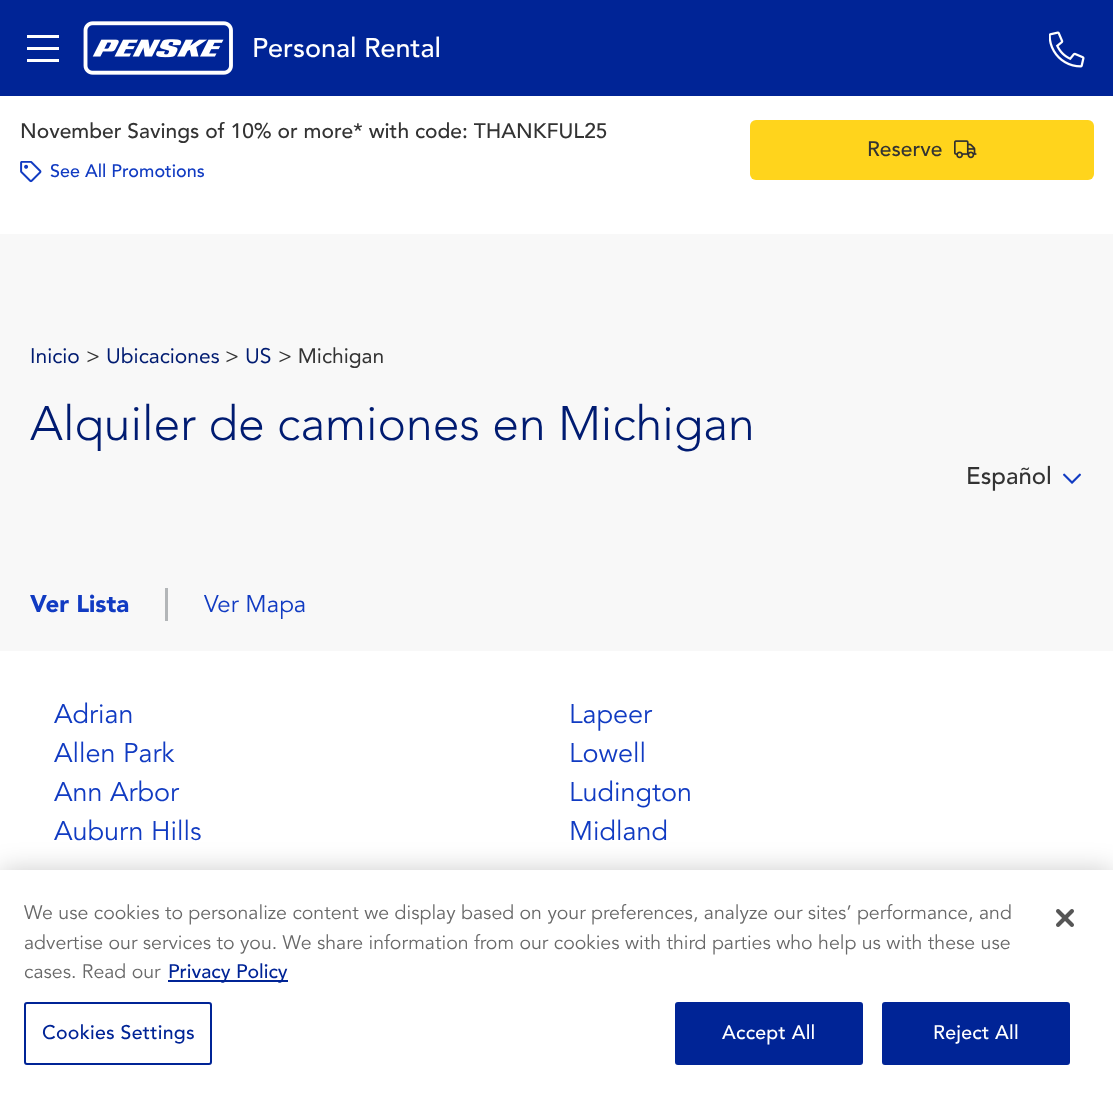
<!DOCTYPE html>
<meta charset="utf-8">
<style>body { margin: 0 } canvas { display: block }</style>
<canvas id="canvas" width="1113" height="1096"></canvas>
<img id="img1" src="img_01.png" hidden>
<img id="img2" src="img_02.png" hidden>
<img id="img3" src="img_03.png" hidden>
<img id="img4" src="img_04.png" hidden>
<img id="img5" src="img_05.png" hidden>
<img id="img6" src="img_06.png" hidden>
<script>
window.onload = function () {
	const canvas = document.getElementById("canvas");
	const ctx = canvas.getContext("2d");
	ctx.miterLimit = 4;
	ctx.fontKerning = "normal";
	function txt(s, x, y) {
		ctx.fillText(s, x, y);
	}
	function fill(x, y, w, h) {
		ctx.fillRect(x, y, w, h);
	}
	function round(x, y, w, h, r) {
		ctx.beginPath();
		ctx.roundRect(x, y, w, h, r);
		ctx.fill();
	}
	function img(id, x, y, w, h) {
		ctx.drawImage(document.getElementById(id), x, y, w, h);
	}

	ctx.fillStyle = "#FFFFFF";
	fill(0, 0, 1113, 1096);
	ctx.fillStyle = "#002496";
	fill(0, 0, 1113, 96);
	ctx.fillStyle = "#FFFFFF";
	fill(27, 35, 32, 3);
	fill(27, 47, 32, 3);
	fill(27, 59, 32, 3);
	img("img1", 83, 21, 150, 54);
	img("img2", 1049, 31, 36, 37);
	img("img3", 20, 161, 22, 22);
	ctx.fillStyle = "#FFD41C";
	round(750, 120, 344, 60, 6);
	img("img4", 954, 140, 23, 19);
	ctx.fillStyle = "#F8F8F8";
	fill(0, 234, 1113, 417);
	img("img5", 1063, 473, 18, 11);
	ctx.fillStyle = "#B3B6B8";
	fill(165, 588, 3, 33);
	ctx.fillStyle = "rgba(0, 0, 0, 0.2)";
	ctx.filter = "blur(13.5px)";
	ctx.beginPath();
	ctx.rect(0, 870, 1113, 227);
	ctx.fill();
	ctx.filter = "none";
	ctx.fillStyle = "#FFFFFF";
	fill(0, 870, 1113, 226);
	ctx.fillStyle = "#002496";
	fill(168, 980, 120, 2);
	ctx.beginPath();
	ctx.roundRect(25, 1003, 186, 61, 2);
	ctx.strokeStyle = "#002496";
	ctx.lineWidth = 2;
	ctx.stroke();
	ctx.beginPath();
	ctx.roundRect(676, 1003, 186, 61, 2);
	ctx.fill();
	ctx.stroke();
	ctx.beginPath();
	ctx.roundRect(883, 1003, 186, 61, 2);
	ctx.fill();
	ctx.stroke();
	img("img6", 1056, 909, 18, 18);
	ctx.font = "500 27px Avenir";
	ctx.fillStyle = "#FFFFFF";
	txt("Personal Rental", 252, 57);
	ctx.font = "500 21px Avenir";
	ctx.fillStyle = "#333333";
	txt("November Savings of 10% or more* with code: THANKFUL25", 20, 138);
	ctx.font = "500 18px Avenir";
	ctx.fillStyle = "#113BC2";
	txt("See All Promotions", 50, 177);
	ctx.font = "500 21px Avenir";
	ctx.fillStyle = "#333333";
	txt("Reserve", 867, 156);
	ctx.font = "21px Avenir";
	ctx.fillStyle = "#001B71";
	txt("Inicio", 30, 363);
	ctx.fillStyle = "#333333";
	txt(">", 86, 363);
	ctx.fillStyle = "#001B71";
	txt("Ubicaciones", 106, 363);
	ctx.fillStyle = "#333333";
	txt(">", 225, 363);
	ctx.fillStyle = "#001B71";
	txt("US", 245, 363);
	ctx.fillStyle = "#333333";
	txt("> Michigan", 278, 363);
	ctx.font = "300 48px Avenir";
	ctx.fillStyle = "#001B71";
	txt("Alquiler de camiones en Michigan", 30, 440);
	ctx.font = "500 24px Avenir";
	ctx.fillStyle = "#333333";
	txt("Español", 966, 484);
	ctx.font = "900 24px Avenir";
	ctx.fillStyle = "#113BC2";
	txt("Ver Lista", 30, 612);
	ctx.font = "24px 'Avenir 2'";
	txt("Ver Mapa", 204, 612);
	ctx.font = "27px 'Avenir 2'";
	txt("Adrian", 54, 723);
	txt("Lapeer", 569, 723);
	txt("Allen Park", 54, 762);
	txt("Lowell", 569, 762);
	txt("Ann Arbor", 54, 801);
	txt("Ludington", 569, 801);
	txt("Auburn Hills", 54, 840);
	txt("Midland", 569, 840);
	ctx.font = "19.5px 'Avenir 2'";
	ctx.fillStyle = "#696969";
	txt("We use cookies to personalize content we display based on your preferences, analyze our sites’ performance, and", 24, 919);
	txt("advertise our services to you. We share information from our cookies with third parties who help us with these use", 24, 949);
	txt("cases. Read our", 24, 978);
	ctx.font = "500 19.5px Avenir";
	ctx.fillStyle = "#002496";
	txt("Privacy Policy", 168, 978);
	ctx.letterSpacing = "0.25px";
	txt("Cookies Settings", 42, 1039);
	ctx.fillStyle = "#FFFFFF";
	txt("Accept All", 722, 1039);
	txt("Reject All", 933, 1039);
};
</script>
